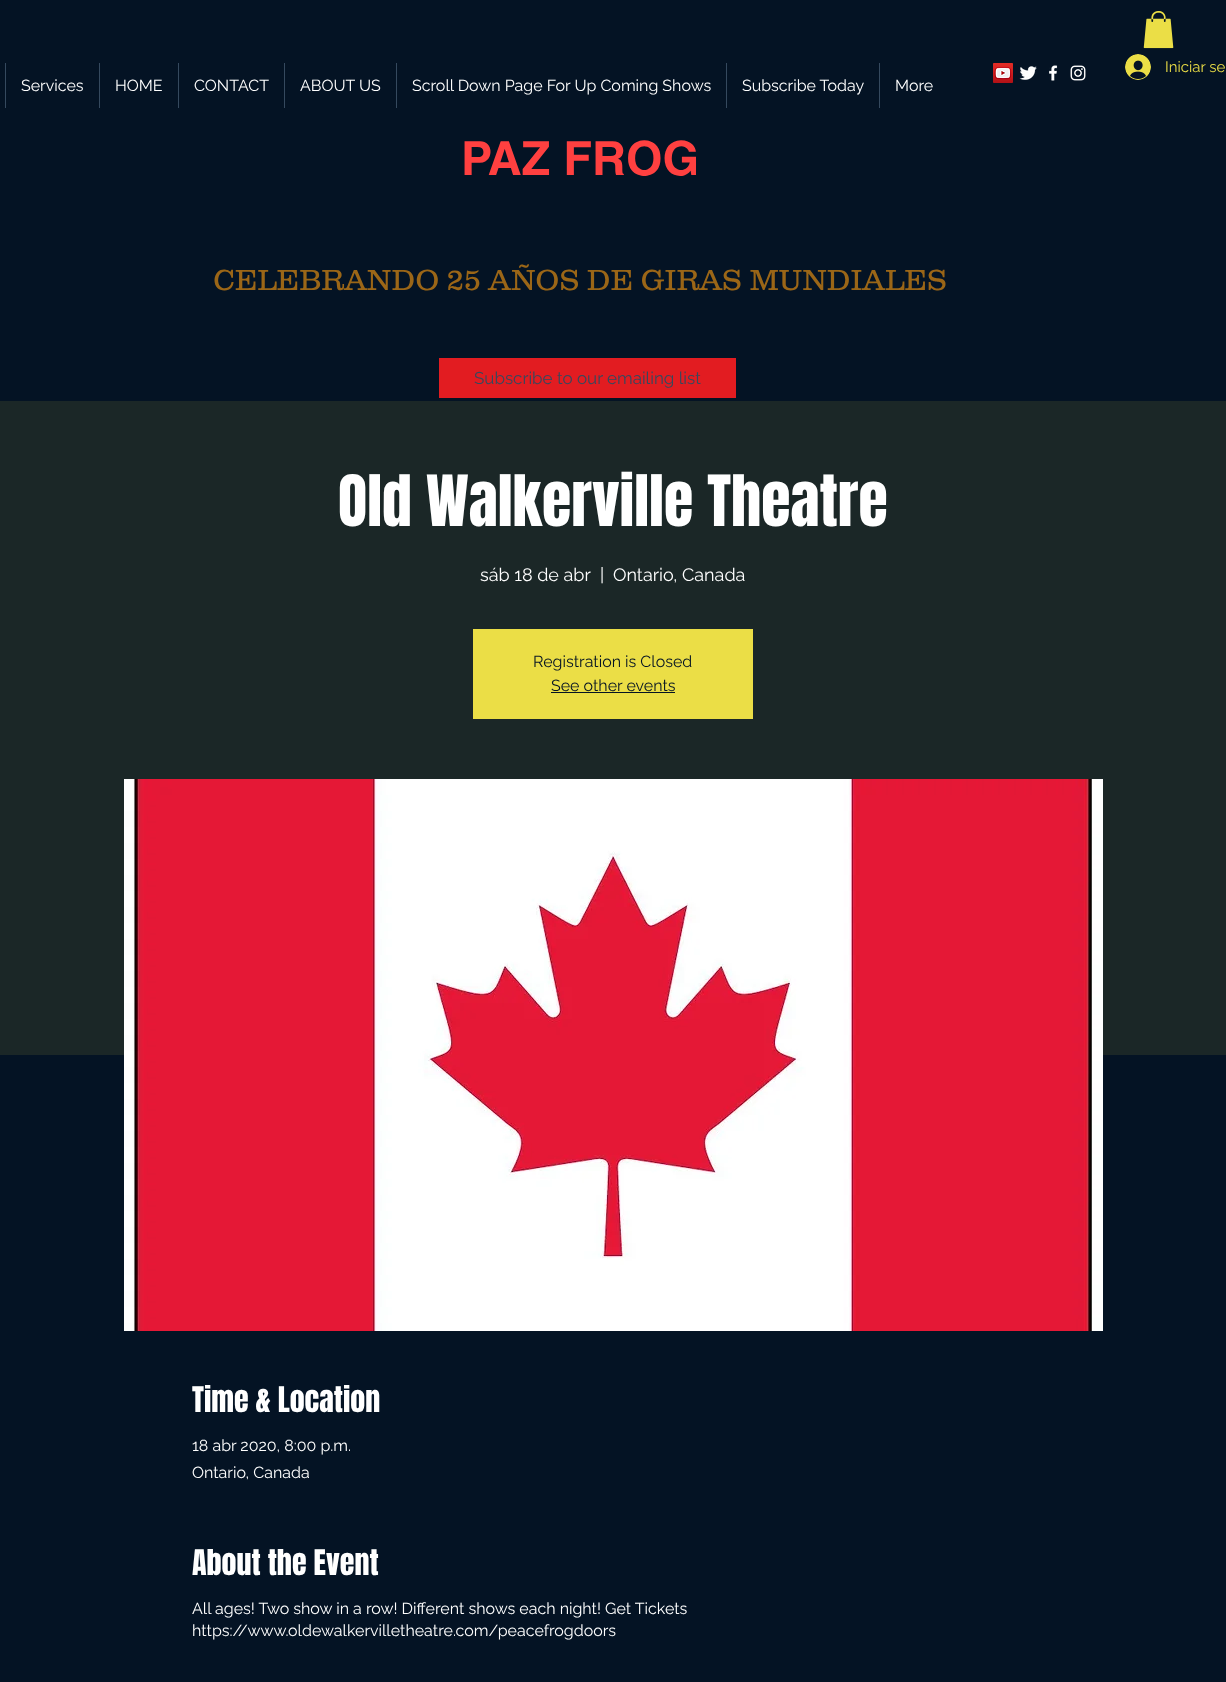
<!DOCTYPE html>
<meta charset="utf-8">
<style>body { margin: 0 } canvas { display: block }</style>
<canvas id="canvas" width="1226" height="1682"></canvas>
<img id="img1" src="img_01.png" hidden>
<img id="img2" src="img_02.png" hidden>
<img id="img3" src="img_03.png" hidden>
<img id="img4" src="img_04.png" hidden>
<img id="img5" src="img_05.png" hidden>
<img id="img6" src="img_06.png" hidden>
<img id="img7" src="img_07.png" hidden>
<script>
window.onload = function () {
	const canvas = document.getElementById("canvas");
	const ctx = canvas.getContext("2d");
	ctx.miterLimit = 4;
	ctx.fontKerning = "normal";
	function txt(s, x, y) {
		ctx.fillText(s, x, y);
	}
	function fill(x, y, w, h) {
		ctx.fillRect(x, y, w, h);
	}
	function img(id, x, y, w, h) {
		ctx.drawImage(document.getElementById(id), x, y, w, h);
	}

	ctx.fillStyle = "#041324";
	fill(0, 0, 1226, 1682);
	img("img1", 1143, 11, 31, 38);
	img("img2", 993, 63, 20, 20);
	img("img3", 1019, 66, 18, 14);
	img("img4", 1049, 65, 9, 16);
	img("img5", 1070, 65, 16, 16);
	img("img6", 1125, 54, 26, 26);
	ctx.fillStyle = "#35495E";
	fill(5, 63, 1, 45);
	fill(99, 63, 1, 45);
	fill(178, 63, 1, 45);
	fill(284, 63, 1, 45);
	fill(396, 63, 1, 45);
	fill(726, 63, 1, 45);
	fill(879, 63, 1, 45);
	ctx.fillStyle = "#E21C21";
	fill(439, 358, 297, 40);
	ctx.fillStyle = "#1B2727";
	fill(0, 401, 1226, 654);
	ctx.fillStyle = "#EBDE46";
	fill(473, 629, 280, 90);
	ctx.fillStyle = "#041324";
	fill(551, 692, 124, 1);
	img("img7", 124, 779, 979, 552);
	ctx.font = "15px Raleway";
	ctx.fillStyle = "#EBDE46";
	txt("Iniciar se", 1165, 72);
	ctx.font = "16px Raleway";
	ctx.fillStyle = "#FFFFFF";
	txt("Services", 21, 91);
	txt("HOME", 115, 91);
	txt("CONTACT", 194, 91);
	txt("ABOUT US", 300, 91);
	txt("Scroll Down Page For Up Coming Shows", 412, 91);
	txt("Subscribe Today", 742, 91);
	txt("More", 895, 91);
	ctx.font = "bold 47px helvetica";
	ctx.fillStyle = "#FF4040";
	txt("PAZ FR", 461, 175);
	txt("OG", 626, 175);
	ctx.font = "300 30px 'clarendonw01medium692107'";
	ctx.fillStyle = "#9B6617";
	txt("CELEBRANDO 25 AÑOS DE GIRAS MUNDIALES", 213, 290);
	ctx.font = "17px Raleway";
	ctx.fillStyle = "#35495E";
	txt("Subscribe to our emailing list", 474, 384);
	ctx.font = "60px Anton";
	ctx.fillStyle = "#FFFFFF";
	txt("Old Walkerville Theatre", 338, 526);
	ctx.font = "18px Raleway";
	txt("sáb 18 de abr", 480, 581);
	txt("|", 600, 581);
	txt("Ontario, Canada", 613, 581);
	ctx.font = "16px Raleway";
	ctx.fillStyle = "#041324";
	txt("Registration is Closed", 533, 667);
	txt("See other events", 551, 691);
	ctx.font = "30px Anton";
	ctx.fillStyle = "#FFFFFF";
	txt("Time & Location", 192, 1412);
	ctx.font = "16px Raleway";
	txt("18 abr 2020, 8:00 p.m.", 192, 1451);
	txt("Ontario, Canada", 192, 1478);
	ctx.font = "30px Anton";
	txt("About the Event", 192, 1575);
	ctx.font = "16px Raleway";
	txt("All ages! Two show in a row! Different shows each night! Get Tickets", 192, 1614);
	txt("https://www.oldewalkervilletheatre.com/peacefrogdoors", 192, 1636);
};
</script>
